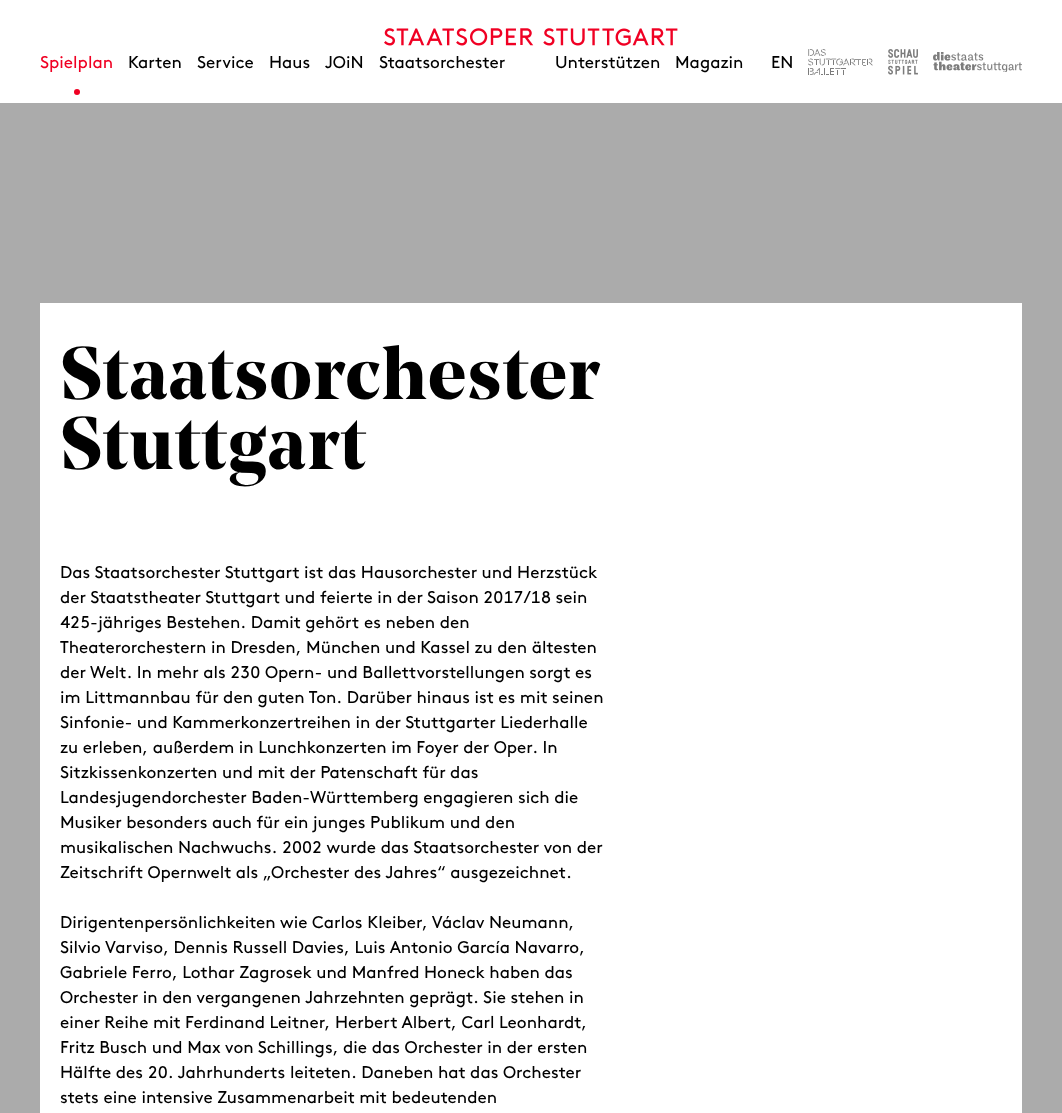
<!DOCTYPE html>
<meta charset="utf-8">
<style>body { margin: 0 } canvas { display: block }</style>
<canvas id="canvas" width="1062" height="1113"></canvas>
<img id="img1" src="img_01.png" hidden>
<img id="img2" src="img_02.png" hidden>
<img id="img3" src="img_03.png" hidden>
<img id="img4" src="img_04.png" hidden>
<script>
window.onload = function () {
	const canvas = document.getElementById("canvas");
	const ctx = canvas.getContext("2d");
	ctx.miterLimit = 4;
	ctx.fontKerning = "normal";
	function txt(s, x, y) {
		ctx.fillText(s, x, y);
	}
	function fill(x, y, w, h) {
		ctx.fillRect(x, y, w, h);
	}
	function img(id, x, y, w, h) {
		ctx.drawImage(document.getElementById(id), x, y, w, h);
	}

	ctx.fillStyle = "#ABABAB";
	fill(0, 0, 1062, 1113);
	ctx.fillStyle = "#FFFFFF";
	fill(0, 0, 1062, 103);
	img("img1", 384, 28, 294, 18);
	ctx.fillStyle = "#F00023";
	ctx.beginPath();
	ctx.arc(77, 92, 3, 0, Math.PI * 2);
	ctx.fill();
	img("img2", 808, 49, 65, 26);
	img("img3", 888, 49, 30, 26);
	img("img4", 933, 52, 89, 20);
	ctx.fillStyle = "#FFFFFF";
	fill(40, 303, 982, 810);
	ctx.font = "17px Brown";
	ctx.fillStyle = "#F00023";
	txt("Spielplan", 40, 68);
	ctx.fillStyle = "#000000";
	txt("Karten", 128, 68);
	txt("Service", 197, 68);
	txt("Haus", 269, 68);
	txt("JOiN", 325, 68);
	txt("Staatsorchester", 379, 68);
	txt("Unterstützen", 555, 68);
	txt("Magazin", 675, 68);
	txt("EN", 771, 68);
	ctx.letterSpacing = "1.5px";
	ctx.font = "bold 74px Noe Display";
	txt("Staatsorchester", 60, 399);
	txt("Stuttgart", 60, 469);
	ctx.letterSpacing = "0px";
	ctx.font = "17px Brown";
	txt("Das Staatsorchester Stuttgart ist das Hausorchester und Herzstück", 60, 578);
	txt("der Staatstheater Stuttgart und", 60, 603);
	ctx.font = "17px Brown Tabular";
	txt("feierte in der Saison 2017/18 sein", 320, 603);
	txt("425-jähriges Bestehen. Damit gehört", 60, 628);
	ctx.font = "17px Brown";
	txt("es neben den", 364, 628);
	txt("Theaterorchestern in Dresden, München und Kassel zu den ältesten", 60, 653);
	ctx.font = "17px Brown Tabular";
	txt("der Welt. In mehr als 230 Opern- und Ballettvorstellungen sorgt", 60, 678);
	ctx.font = "17px Brown";
	txt("es", 575, 678);
	txt("im Littmannbau für den guten Ton. Darüber hinaus ist es mit seinen", 60, 703);
	txt("Sinfonie- und Kammerkonzertreihen in der Stuttgarter Liederhalle", 60, 728);
	txt("zu erleben, außerdem in Lunchkonzerten im Foyer der Oper. In", 60, 753);
	txt("Sitzkissenkonzerten und mit der Patenschaft für das", 60, 778);
	txt("Landesjugendorchester Baden-Württemberg engagieren sich die", 60, 803);
	txt("Musiker besonders auch für ein junges Publikum und den", 60, 828);
	txt("musikalischen Nachwuchs.", 60, 853);
	ctx.font = "17px Brown Tabular";
	txt("2002 wurde das Staatsorchester von der", 282, 853);
	ctx.font = "17px Brown";
	txt("Zeitschrift Opernwelt als „Orchester des Jahres“ ausgezeichnet.", 60, 878);
	txt("Dirigentenpersönlichkeiten wie Carlos Kleiber, Václav Neumann,", 60, 928);
	txt("Silvio", 60, 953);
	txt("Varviso, Dennis Russell Davies, Luis Antonio García Navarro,", 105, 953);
	txt("Gabriele Ferro, Lothar Zagrosek und Manfred Honeck haben das", 60, 978);
	txt("Orchester in den vergangenen Jahrzehnten geprägt. Sie stehen in", 60, 1003);
	txt("einer Reihe mit Ferdinand Leitner, Herbert Albert, Carl Leonhardt,", 60, 1028);
	txt("Fritz Busch und Max von Schillings, die das Orchester in der ersten", 60, 1053);
	ctx.font = "17px Brown Tabular";
	txt("Hälfte des 20. Jahrhunderts", 60, 1078);
	ctx.font = "17px Brown";
	txt("leiteten. Daneben hat das Orchester", 290, 1078);
	txt("stets eine intensive Zusammenarbeit mit bedeutenden", 60, 1103);
};
</script>
